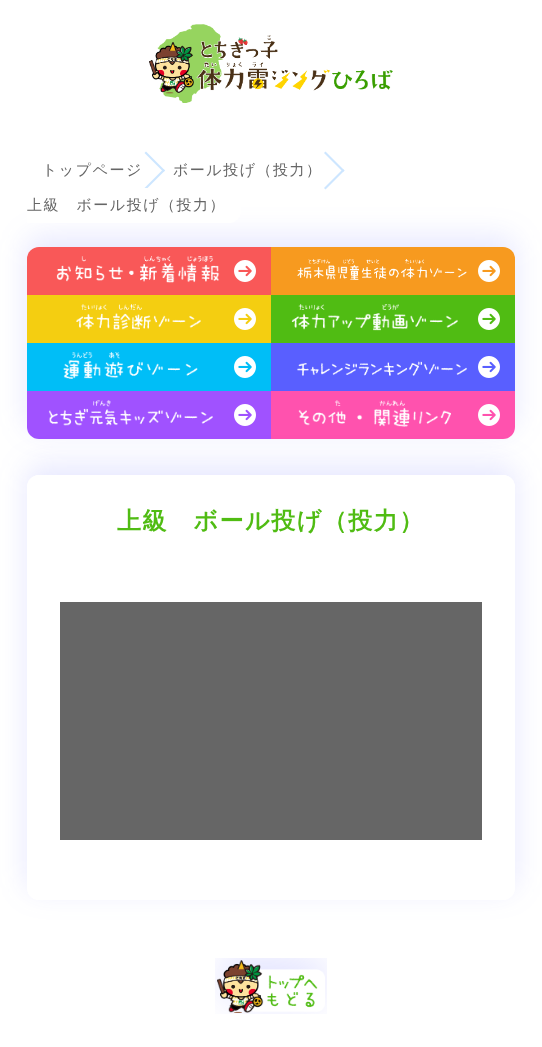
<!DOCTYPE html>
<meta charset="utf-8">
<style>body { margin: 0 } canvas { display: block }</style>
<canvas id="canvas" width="542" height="1047"></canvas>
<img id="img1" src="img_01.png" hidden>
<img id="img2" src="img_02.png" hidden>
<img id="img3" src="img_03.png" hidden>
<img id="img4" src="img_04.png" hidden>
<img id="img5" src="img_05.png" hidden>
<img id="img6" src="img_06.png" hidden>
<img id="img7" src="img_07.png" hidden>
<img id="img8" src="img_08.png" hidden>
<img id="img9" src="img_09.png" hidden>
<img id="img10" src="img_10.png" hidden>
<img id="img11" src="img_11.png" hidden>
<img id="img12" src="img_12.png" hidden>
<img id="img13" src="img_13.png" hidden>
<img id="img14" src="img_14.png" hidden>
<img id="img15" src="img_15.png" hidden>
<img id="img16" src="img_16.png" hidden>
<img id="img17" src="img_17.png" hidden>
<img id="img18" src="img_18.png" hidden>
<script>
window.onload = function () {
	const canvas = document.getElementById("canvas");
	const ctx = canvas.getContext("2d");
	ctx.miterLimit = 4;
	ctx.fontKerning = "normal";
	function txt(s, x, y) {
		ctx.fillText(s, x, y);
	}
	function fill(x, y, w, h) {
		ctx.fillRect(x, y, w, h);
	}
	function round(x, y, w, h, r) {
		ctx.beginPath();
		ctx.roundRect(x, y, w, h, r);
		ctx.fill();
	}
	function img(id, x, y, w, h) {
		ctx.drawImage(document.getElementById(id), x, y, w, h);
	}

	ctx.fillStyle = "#FFFFFF";
	fill(0, 0, 542, 1047);
	img("img1", 149, 24, 244, 79);
	ctx.fillStyle = "#CDE6FF";
	ctx.beginPath();
	ctx.moveTo(146, 151.5);
	ctx.lineTo(165, 170.5);
	ctx.lineTo(163.5, 172);
	ctx.lineTo(144.5, 153);
	ctx.closePath();
	ctx.fill();
	ctx.beginPath();
	ctx.moveTo(163.5, 169);
	ctx.lineTo(165, 170.5);
	ctx.lineTo(146, 189.5);
	ctx.lineTo(144.5, 188);
	ctx.closePath();
	ctx.fill();
	ctx.beginPath();
	ctx.moveTo(325.5, 151.5);
	ctx.lineTo(344.5, 170.5);
	ctx.lineTo(343, 172);
	ctx.lineTo(324, 153);
	ctx.closePath();
	ctx.fill();
	ctx.beginPath();
	ctx.moveTo(343, 169);
	ctx.lineTo(344.5, 170.5);
	ctx.lineTo(325.5, 189.5);
	ctx.lineTo(324, 188);
	ctx.closePath();
	ctx.fill();
	ctx.fillStyle = "rgba(89, 95, 255, 0.15)";
	ctx.filter = "blur(15px)";
	ctx.beginPath();
	ctx.roundRect(27, 237, 488, 192, 12);
	ctx.fill();
	ctx.filter = "none";
	ctx.fillStyle = "#FFFFFF";
	ctx.beginPath();
	ctx.roundRect(27, 188, 214, 35, [0, 12, 12, 0]);
	ctx.fill();
	ctx.fillStyle = "#F95858";
	ctx.beginPath();
	ctx.roundRect(27, 247, 244, 48, [12, 0, 0, 0]);
	ctx.fill();
	img("img2", 56, 256, 164, 27);
	img("img3", 234, 260, 22, 22);
	ctx.fillStyle = "#F79A1F";
	ctx.beginPath();
	ctx.roundRect(271, 247, 244, 48, [0, 12, 0, 0]);
	ctx.fill();
	img("img4", 297, 259, 170, 21);
	img("img5", 478, 260, 22, 22);
	ctx.fillStyle = "#F4CE11";
	fill(27, 295, 244, 48);
	img("img6", 76, 304, 125, 26);
	img("img7", 234, 308, 22, 22);
	ctx.fillStyle = "#50BC13";
	fill(271, 295, 244, 48);
	img("img8", 291, 304, 167, 27);
	img("img9", 478, 308, 22, 22);
	ctx.fillStyle = "#00BEF7";
	fill(27, 343, 244, 48);
	img("img10", 63, 352, 135, 27);
	img("img11", 234, 356, 22, 22);
	ctx.fillStyle = "#595FFF";
	fill(271, 343, 244, 48);
	img("img12", 297, 361, 170, 15);
	img("img13", 478, 356, 22, 22);
	ctx.fillStyle = "#A052FF";
	ctx.beginPath();
	ctx.roundRect(27, 391, 244, 48, [0, 0, 0, 12]);
	ctx.fill();
	img("img14", 48, 400, 165, 26);
	img("img15", 234, 404, 22, 22);
	ctx.fillStyle = "#FF52AE";
	ctx.beginPath();
	ctx.roundRect(271, 391, 244, 48, [0, 0, 12, 0]);
	ctx.fill();
	img("img16", 298, 400, 153, 27);
	img("img17", 478, 404, 22, 22);
	ctx.save();
	ctx.beginPath();
	ctx.moveTo(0, 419);
	ctx.lineTo(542, 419);
	ctx.lineTo(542, 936);
	ctx.lineTo(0, 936);
	ctx.closePath();
	ctx.moveTo(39, 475);
	ctx.lineTo(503, 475);
	ctx.bezierCurveTo(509.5, 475, 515, 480.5, 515, 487);
	ctx.lineTo(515, 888);
	ctx.bezierCurveTo(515, 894.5, 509.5, 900, 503, 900);
	ctx.lineTo(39, 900);
	ctx.bezierCurveTo(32.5, 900, 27, 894.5, 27, 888);
	ctx.lineTo(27, 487);
	ctx.bezierCurveTo(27, 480.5, 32.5, 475, 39, 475);
	ctx.closePath();
	ctx.clip("evenodd");
	ctx.fillStyle = "rgba(89, 95, 255, 0.15)";
	ctx.filter = "blur(15px)";
	ctx.beginPath();
	ctx.roundRect(27, 465, 488, 425, 12);
	ctx.fill();
	ctx.filter = "none";
	ctx.restore();
	ctx.fillStyle = "rgba(255, 255, 255, 0.95)";
	round(27, 475, 488, 425, 12);
	ctx.fillStyle = "#666666";
	fill(60, 602, 422, 238);
	img("img18", 215, 958, 112, 56);
	ctx.letterSpacing = "1.5px";
	ctx.font = "500 15px WenQuanYi Zen Hei";
	txt("トップページ", 42, 175);
	txt("ボール投げ（投力）", 173, 175);
	txt("上級　ボール投げ（投力）", 27, 210);
	ctx.font = "bold 24px WenQuanYi Zen Hei";
	ctx.fillStyle = "#50BC13";
	txt("上級　ボール投げ（投力）", 117, 529);
};
</script>
